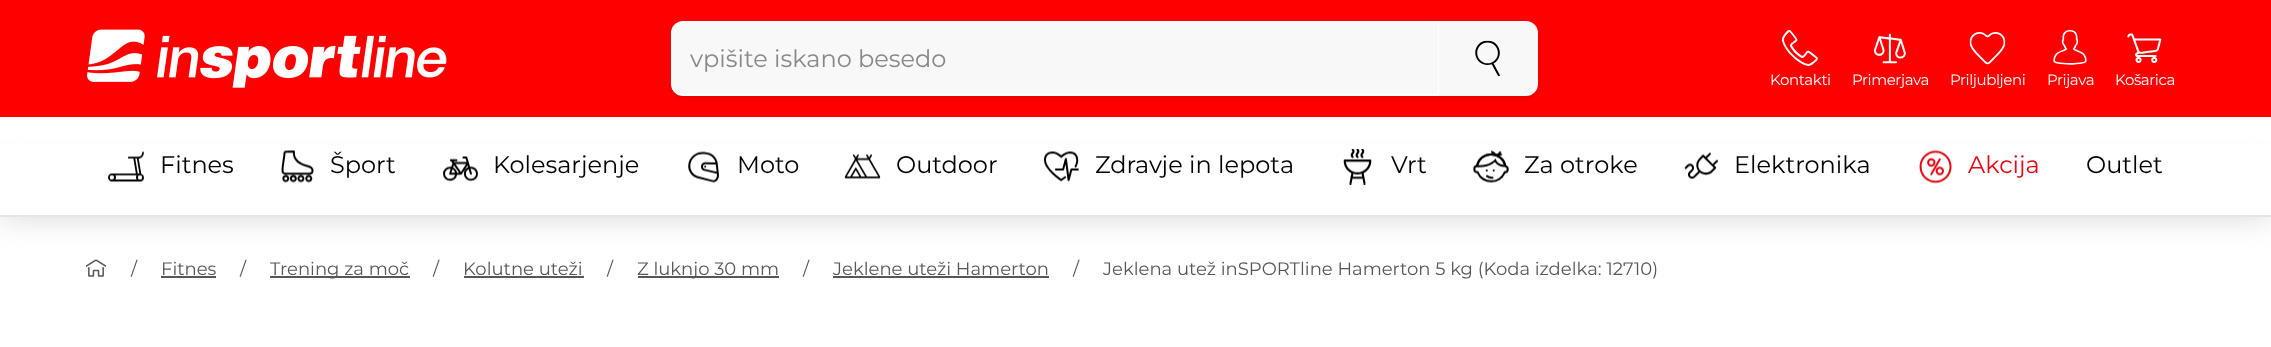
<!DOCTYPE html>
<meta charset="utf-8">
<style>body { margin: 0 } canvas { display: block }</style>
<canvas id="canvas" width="2271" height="347"></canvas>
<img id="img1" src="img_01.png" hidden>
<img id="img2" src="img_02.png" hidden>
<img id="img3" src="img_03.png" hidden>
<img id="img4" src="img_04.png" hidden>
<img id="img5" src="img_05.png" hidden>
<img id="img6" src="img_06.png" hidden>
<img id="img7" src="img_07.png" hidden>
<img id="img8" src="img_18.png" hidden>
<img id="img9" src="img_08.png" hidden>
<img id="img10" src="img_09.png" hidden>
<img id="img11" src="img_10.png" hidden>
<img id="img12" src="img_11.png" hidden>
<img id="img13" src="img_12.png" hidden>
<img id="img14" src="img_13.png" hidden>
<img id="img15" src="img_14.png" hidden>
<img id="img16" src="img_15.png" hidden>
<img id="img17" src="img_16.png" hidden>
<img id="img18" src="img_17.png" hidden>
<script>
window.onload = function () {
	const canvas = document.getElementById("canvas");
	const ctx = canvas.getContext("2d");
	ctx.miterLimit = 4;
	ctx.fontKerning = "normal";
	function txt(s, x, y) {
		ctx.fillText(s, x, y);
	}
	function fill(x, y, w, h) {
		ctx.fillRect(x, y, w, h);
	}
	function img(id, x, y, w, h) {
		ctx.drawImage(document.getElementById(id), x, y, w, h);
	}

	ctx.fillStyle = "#FFFFFF";
	fill(0, 0, 2271, 347);
	ctx.fillStyle = "#FF0000";
	fill(0, 0, 2271, 9);
	fill(0, 9, 2271, 108);
	img("img1", 87, 29, 360, 59);
	ctx.fillStyle = "rgba(0, 0, 0, 0.1)";
	ctx.filter = "blur(2px)";
	ctx.beginPath();
	ctx.roundRect(671, 23, 867, 75, 12);
	ctx.fill();
	ctx.filter = "none";
	ctx.fillStyle = "#F8F8F8";
	ctx.beginPath();
	ctx.roundRect(672, 22, 767, 73, [11, 0, 0, 11]);
	ctx.fill();
	ctx.strokeStyle = "#FFFFFF";
	ctx.lineWidth = 2;
	ctx.stroke();
	ctx.beginPath();
	ctx.roundRect(1440, 22, 97, 73, [0, 11, 11, 0]);
	ctx.fill();
	ctx.strokeStyle = "#F8F8F8";
	ctx.stroke();
	img("img2", 1475, 40, 25, 37);
	img("img3", 1782, 30, 36, 36);
	img("img4", 1873, 33, 33, 31);
	img("img5", 1969, 32, 37, 33);
	img("img6", 2053, 30, 34, 35);
	img("img7", 2127, 33, 35, 30);
	img("img8", 85, 259, 22, 18);
	ctx.fillStyle = "rgba(0, 0, 0, 0.15)";
	ctx.filter = "blur(15px)";
	ctx.beginPath();
	ctx.rect(0, 168, 2271, 50);
	ctx.fill();
	ctx.filter = "none";
	ctx.fillStyle = "#FFFFFF";
	fill(0, 145, 2271, 70);
	ctx.fillStyle = "#E5E5E5";
	fill(0, 215, 2271, 2);
	img("img9", 108, 151, 36, 31);
	img("img10", 281, 150, 33, 33);
	img("img11", 443, 156, 35, 26);
	img("img12", 688, 151, 31, 32);
	img("img13", 844, 154, 37, 25);
	img("img14", 1044, 151, 35, 31);
	img("img15", 1343, 149, 29, 36);
	img("img16", 1473, 150, 36, 33);
	img("img17", 1684, 152, 34, 28);
	img("img18", 1919, 150, 33, 34);
	ctx.fillStyle = "#575757";
	fill(161, 276, 55, 2);
	fill(270, 276, 140, 2);
	fill(464, 276, 120, 2);
	fill(638, 276, 141, 2);
	fill(833, 276, 216, 2);
	ctx.font = "100 24px Montserrat";
	ctx.fillStyle = "#888888";
	txt("vpišite iskano besedo", 690, 67);
	ctx.letterSpacing = "-0.4px";
	ctx.font = "100 15px Montserrat";
	ctx.fillStyle = "#FFFFFF";
	txt("Kontakti", 1770, 85);
	txt("Primerjava", 1852, 85);
	txt("Priljubljeni", 1950, 85);
	txt("Prijava", 2047, 85);
	txt("Košarica", 2115, 85);
	ctx.letterSpacing = "0px";
	ctx.font = "100 24px Montserrat";
	ctx.fillStyle = "#000000";
	txt("Fitnes", 160, 173);
	txt("Šport", 330, 173);
	txt("Kolesarjenje", 493, 173);
	txt("Moto", 737, 173);
	txt("Outdoor", 896, 173);
	txt("Zdravje in lepota", 1095, 173);
	txt("Vrt", 1391, 173);
	txt("Za otroke", 1524, 173);
	txt("Elektronika", 1734, 173);
	ctx.fillStyle = "#E30613";
	txt("Akcija", 1968, 173);
	ctx.fillStyle = "#000000";
	txt("Outlet", 2086, 173);
	ctx.font = "100 18px Montserrat";
	ctx.fillStyle = "#575757";
	txt("/", 131, 275);
	txt("Fitnes", 161, 275);
	txt("/", 240, 275);
	txt("Trening za moč", 270, 275);
	txt("/", 433, 275);
	txt("Kolutne uteži", 463, 275);
	txt("/", 607, 275);
	txt("Z luknjo 30 mm", 637, 275);
	txt("/", 803, 275);
	txt("Jeklene uteži Hamerton", 833, 275);
	txt("/", 1073, 275);
	txt("Jeklena utež inSPORTline Hamerton 5 kg (Koda izdelka: 12710)", 1103, 275);
};
</script>
